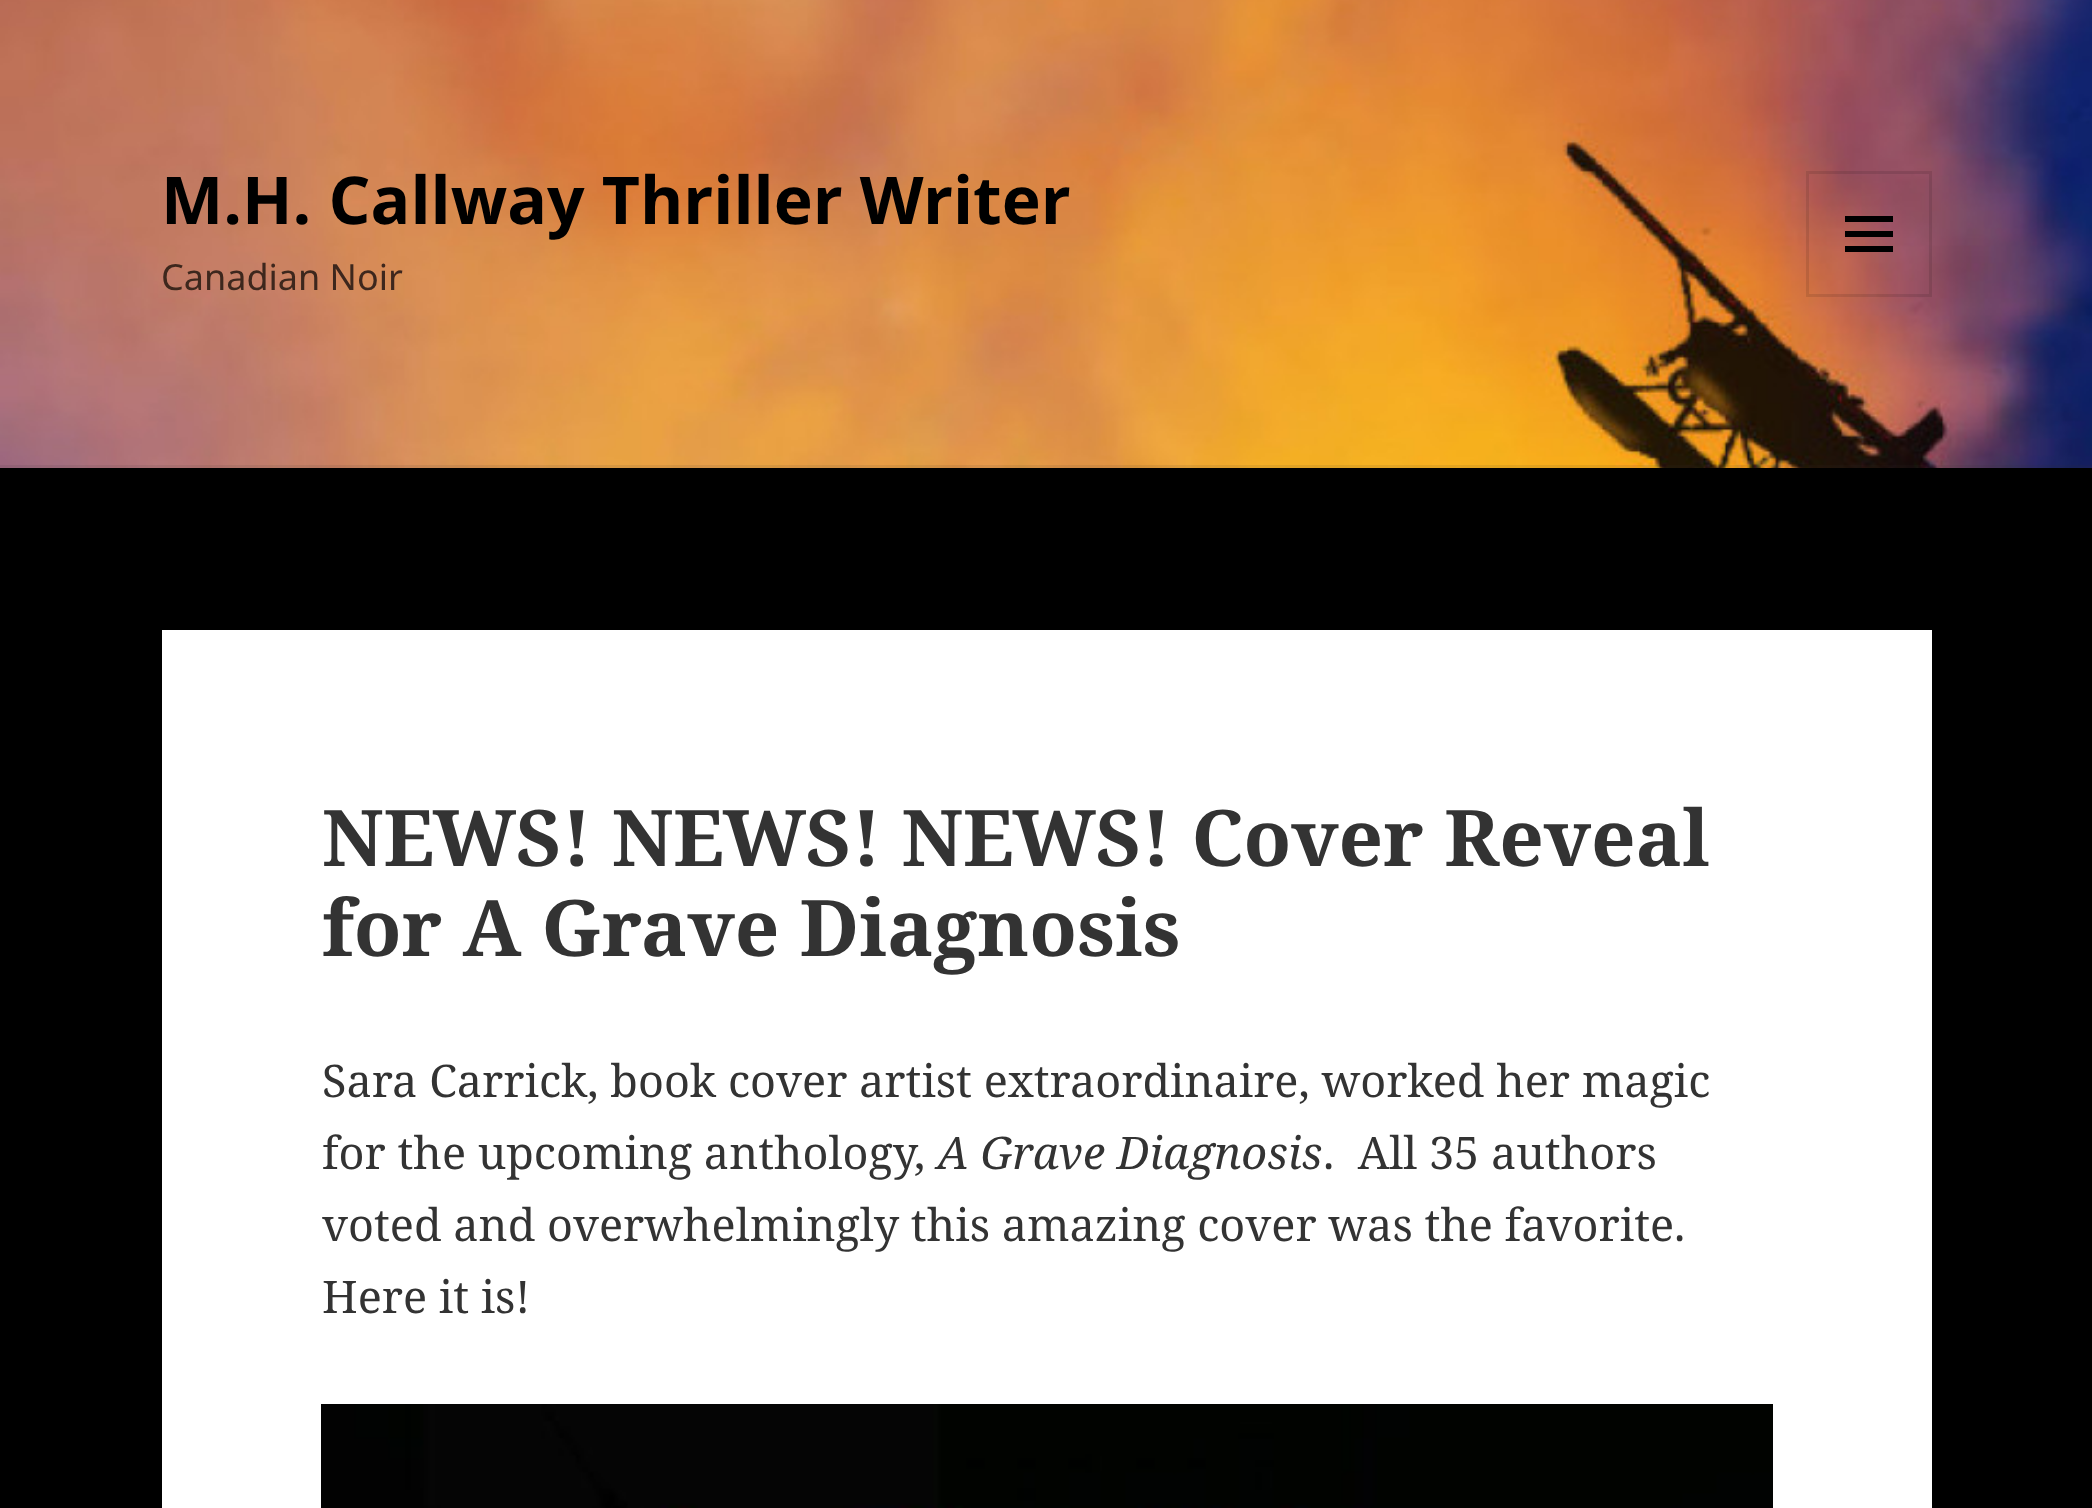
<!DOCTYPE html>
<meta charset="utf-8">
<style>body { margin: 0 } canvas { display: block }</style>
<canvas id="canvas" width="2092" height="1508"></canvas>
<img id="img1" src="img_01.png" hidden>
<img id="img2" src="img_02.png" hidden>
<script>
window.onload = function () {
	const canvas = document.getElementById("canvas");
	const ctx = canvas.getContext("2d");
	ctx.miterLimit = 4;
	ctx.fontKerning = "normal";
	function txt(s, x, y) {
		ctx.fillText(s, x, y);
	}
	function fill(x, y, w, h) {
		ctx.fillRect(x, y, w, h);
	}
	function img(id, x, y, w, h) {
		ctx.drawImage(document.getElementById(id), x, y, w, h);
	}

	ctx.fillStyle = "#000000";
	fill(0, 0, 2092, 1508);
	img("img1", 0, 0, 2092, 468);
	ctx.fillStyle = "rgba(51, 51, 51, 0.1)";
	fill(0, 465, 2092, 3);
	ctx.strokeStyle = "rgba(0, 0, 0, 0.1)";
	ctx.lineWidth = 3;
	ctx.strokeRect(1807.5, 172.5, 123, 123);
	ctx.fillStyle = "#000000";
	ctx.beginPath();
	ctx.moveTo(1845, 252);
	ctx.lineTo(1845, 246);
	ctx.lineTo(1893, 246);
	ctx.lineTo(1893, 252);
	ctx.closePath();
	ctx.moveTo(1845, 216);
	ctx.lineTo(1893, 216);
	ctx.lineTo(1893, 222);
	ctx.lineTo(1845, 222);
	ctx.closePath();
	ctx.moveTo(1845, 237);
	ctx.lineTo(1845, 231);
	ctx.lineTo(1893, 231);
	ctx.lineTo(1893, 237);
	ctx.closePath();
	ctx.fill();
	ctx.fillStyle = "#FFFFFF";
	fill(162, 630, 1770, 878);
	img("img2", 321, 1404, 1452, 104);
	ctx.font = "bold 66px Noto Sans";
	ctx.fillStyle = "#000000";
	txt("M.H. Callway Thriller Writer", 161, 224);
	ctx.font = "36px Noto Sans";
	ctx.fillStyle = "#3D271D";
	txt("Canadian Noir", 161, 290);
	ctx.font = "bold 78px Noto Serif";
	ctx.fillStyle = "#333333";
	txt("NEWS! NEWS! NEWS! Cover Reveal", 322, 866);
	txt("for A Grave Diagnosis", 322, 956);
	ctx.font = "45px Noto Serif";
	txt("Sara Carrick, book cover artist extraordinaire, worked her magic", 322, 1097);
	txt("for the upcoming anthology,", 322, 1169);
	ctx.font = "italic 45px Noto Serif";
	txt("A Grave Diagnosis", 937, 1169);
	ctx.font = "45px Noto Serif";
	txt(".  All 35 authors", 1323, 1169);
	txt("voted and overwhelmingly this amazing cover was the favorite.", 322, 1241);
	txt("Here it is!", 322, 1313);
};
</script>
